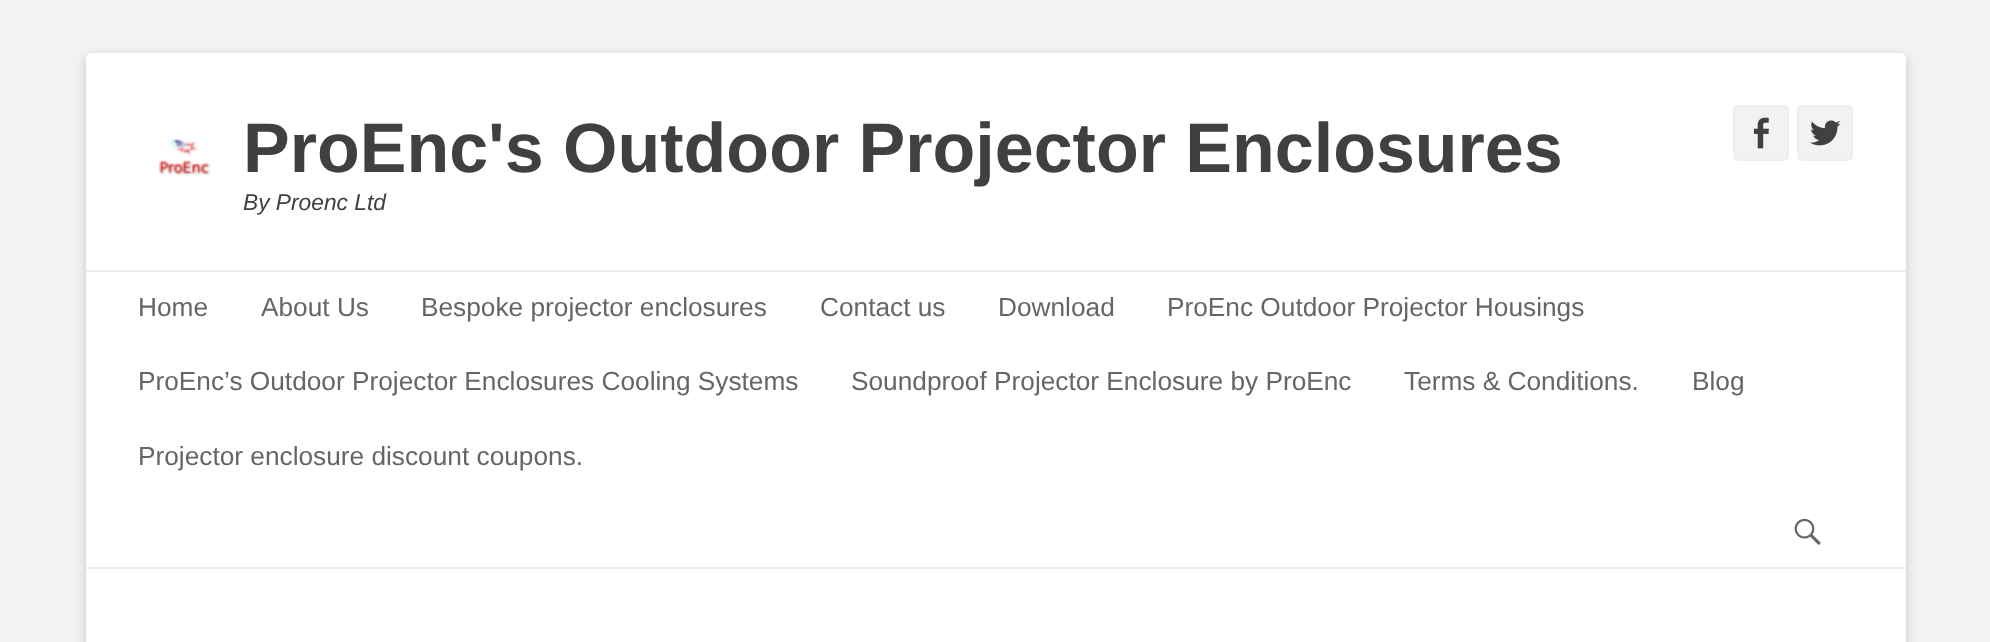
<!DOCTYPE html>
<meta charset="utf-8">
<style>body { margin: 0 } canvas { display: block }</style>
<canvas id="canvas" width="1990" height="642"></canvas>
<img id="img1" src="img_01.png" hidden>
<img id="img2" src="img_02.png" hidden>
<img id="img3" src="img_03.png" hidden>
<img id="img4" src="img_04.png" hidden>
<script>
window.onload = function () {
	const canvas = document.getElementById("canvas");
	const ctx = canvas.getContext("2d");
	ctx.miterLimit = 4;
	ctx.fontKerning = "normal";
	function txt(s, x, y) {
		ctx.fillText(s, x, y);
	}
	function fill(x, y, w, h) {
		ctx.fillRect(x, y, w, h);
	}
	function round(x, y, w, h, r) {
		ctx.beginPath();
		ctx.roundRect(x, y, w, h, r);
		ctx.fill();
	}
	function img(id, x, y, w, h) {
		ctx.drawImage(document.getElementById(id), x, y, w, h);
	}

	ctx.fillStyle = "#F2F2F2";
	fill(0, 0, 1990, 642);
	ctx.fillStyle = "rgba(100, 100, 100, 0.3)";
	ctx.filter = "blur(5px)";
	ctx.beginPath();
	ctx.roundRect(86, 56, 1820, 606, 5);
	ctx.fill();
	ctx.filter = "none";
	ctx.fillStyle = "#FFFFFF";
	round(86, 53, 1820, 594, 5);
	img("img1", 158, 138, 53, 38);
	ctx.fillStyle = "#F2F2F2";
	ctx.beginPath();
	ctx.roundRect(1734, 106, 54, 54, 4);
	ctx.fill();
	ctx.strokeStyle = "#EEEEEE";
	ctx.lineWidth = 2;
	ctx.stroke();
	img("img2", 1753, 117, 16, 32);
	ctx.beginPath();
	ctx.roundRect(1798, 106, 54, 54, 4);
	ctx.fill();
	ctx.stroke();
	img("img3", 1810, 120, 31, 26);
	ctx.fillStyle = "#EEEEEE";
	fill(86, 270, 1820, 2);
	fill(86, 567, 1820, 2);
	img("img4", 1794, 518, 27, 27);
	ctx.font = "bold 70px Liberation Sans";
	ctx.fillStyle = "#404040";
	txt("ProEnc's Outdoor Projector Enclosures", 243, 172);
	ctx.font = "italic 22.75px Liberation Sans";
	txt("By Proenc Ltd", 243, 210);
	ctx.font = "26.25px Liberation Sans";
	ctx.fillStyle = "#666666";
	txt("Home", 138, 316);
	txt("About Us", 261, 316);
	txt("Bespoke projector enclosures", 421, 316);
	txt("Contact us", 820, 316);
	txt("Download", 998, 316);
	txt("ProEnc Outdoor Projector Housings", 1167, 316);
	txt("ProEnc’s Outdoor Projector Enclosures Cooling Systems", 138, 390);
	txt("Soundproof Projector Enclosure by ProEnc", 851, 390);
	txt("Terms & Conditions.", 1404, 390);
	txt("Blog", 1692, 390);
	txt("Projector enclosure discount coupons.", 138, 465);
};
</script>
